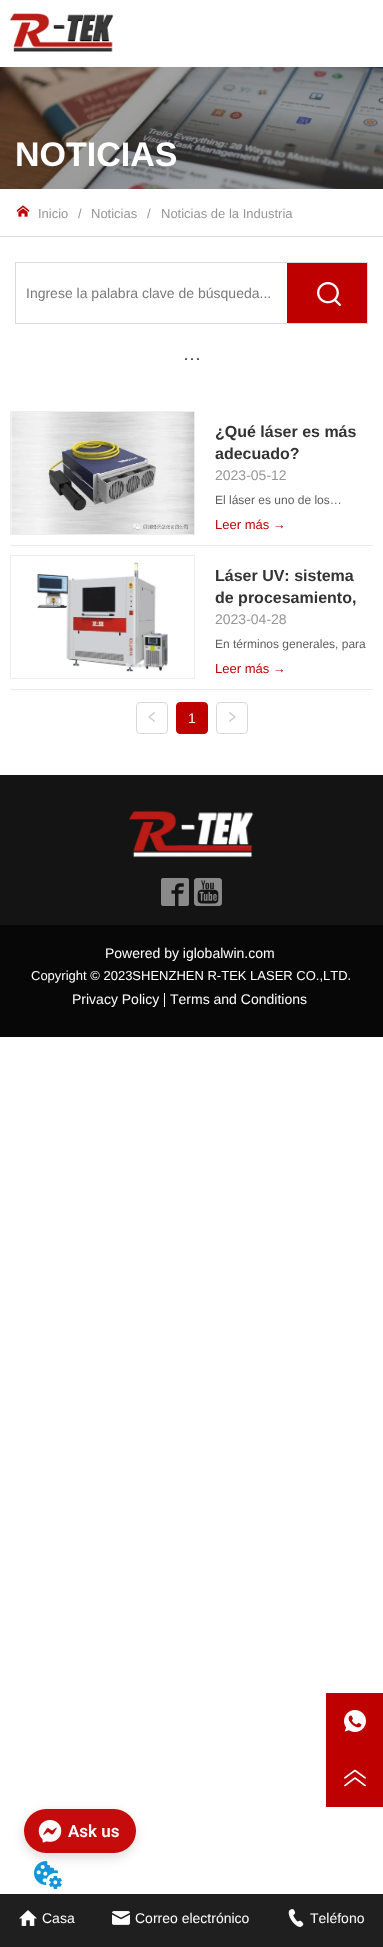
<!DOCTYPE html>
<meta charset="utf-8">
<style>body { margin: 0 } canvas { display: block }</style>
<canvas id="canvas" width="383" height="1947"></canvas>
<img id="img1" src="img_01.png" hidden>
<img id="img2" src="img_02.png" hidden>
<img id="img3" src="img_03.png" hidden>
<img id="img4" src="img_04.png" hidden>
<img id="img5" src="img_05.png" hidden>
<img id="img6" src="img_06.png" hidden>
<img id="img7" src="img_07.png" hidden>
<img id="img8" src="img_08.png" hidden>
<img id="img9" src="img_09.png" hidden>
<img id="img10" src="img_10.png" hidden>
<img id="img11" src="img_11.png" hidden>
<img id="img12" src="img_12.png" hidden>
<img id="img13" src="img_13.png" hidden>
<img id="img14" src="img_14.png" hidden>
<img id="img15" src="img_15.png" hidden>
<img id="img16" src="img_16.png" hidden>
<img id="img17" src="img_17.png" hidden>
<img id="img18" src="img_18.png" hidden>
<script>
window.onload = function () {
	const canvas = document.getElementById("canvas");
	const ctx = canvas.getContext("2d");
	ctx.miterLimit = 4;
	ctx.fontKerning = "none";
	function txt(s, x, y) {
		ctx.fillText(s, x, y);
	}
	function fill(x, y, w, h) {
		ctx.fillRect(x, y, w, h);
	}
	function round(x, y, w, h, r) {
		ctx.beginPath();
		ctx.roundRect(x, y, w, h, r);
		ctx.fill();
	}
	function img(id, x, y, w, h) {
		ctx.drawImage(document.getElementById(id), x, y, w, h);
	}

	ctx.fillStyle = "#FFFFFF";
	fill(0, 0, 383, 1947);
	img("img1", 10, 13, 104, 39);
	ctx.fillStyle = "#BE0000";
	fill(326, 1693, 57, 114);
	img("img2", 344, 1710, 22, 22);
	img("img3", 344, 1769, 22, 18);
	img("img4", 0, 67, 383, 122);
	img("img5", 16, 205, 14, 12);
	ctx.fillStyle = "#DDDDDD";
	fill(0, 236, 383, 1);
	ctx.strokeStyle = "#DBDADA";
	ctx.strokeRect(15.5, 262.5, 352, 61);
	ctx.fillStyle = "#BE0000";
	fill(287, 263, 80, 60);
	img("img6", 317, 282, 24, 24);
	ctx.fillStyle = "#EBEBEB";
	fill(10, 545, 363, 1);
	img("img7", 11, 412, 183, 122);
	ctx.strokeStyle = "#EEEEEE";
	ctx.strokeRect(10.5, 411.5, 184, 123);
	fill(10, 689, 363, 1);
	img("img8", 37, 562, 131, 110);
	ctx.strokeRect(10.5, 555.5, 184, 123);
	ctx.beginPath();
	ctx.roundRect(136.5, 702.5, 31, 31, 3.5);
	ctx.strokeStyle = "#D9D9D9";
	ctx.stroke();
	img("img9", 148, 712, 7, 10);
	ctx.fillStyle = "#BE0000";
	ctx.beginPath();
	ctx.roundRect(176.5, 702.5, 31, 31, 3.5);
	ctx.fill();
	ctx.strokeStyle = "#BE0000";
	ctx.stroke();
	ctx.beginPath();
	ctx.roundRect(216.5, 702.5, 31, 31, 3.5);
	ctx.strokeStyle = "#D9D9D9";
	ctx.stroke();
	img("img10", 229, 712, 7, 10);
	ctx.fillStyle = "#141414";
	fill(0, 775, 383, 150);
	img("img11", 129, 810, 125, 48);
	img("img12", 161, 878, 28, 28);
	img("img13", 194, 878, 28, 28);
	ctx.fillStyle = "#070707";
	fill(0, 925, 383, 112);
	ctx.fillStyle = "#FFFFFF";
	fill(164, 993, 1, 14);
	ctx.fillStyle = "#1F1F1F";
	fill(0, 1894, 383, 53);
	img("img14", 19, 1910, 18, 16);
	img("img15", 112, 1911, 18, 14);
	img("img16", 288, 1909, 16, 18);
	ctx.fillStyle = "rgba(0, 0, 0, 0.15)";
	ctx.filter = "blur(6px)";
	ctx.beginPath();
	ctx.roundRect(24, 1813, 111, 44, 22);
	ctx.fill();
	ctx.filter = "none";
	ctx.fillStyle = "#C50B0B";
	round(24, 1809, 112, 44, 22);
	img("img17", 38, 1820, 24, 23);
	img("img18", 34, 1861, 28, 28);
	ctx.font = "bold 34px Liberation Sans";
	ctx.fillStyle = "#FFFFFF";
	txt("NOTICIAS", 15, 166);
	ctx.font = "13px Liberation Sans";
	ctx.fillStyle = "#979797";
	txt("Inicio", 38, 218);
	txt("/", 78, 218);
	txt("Noticias", 91, 218);
	txt("/", 147, 218);
	txt("Noticias de la Industria", 161, 218);
	ctx.font = "14px Liberation Sans";
	ctx.fillStyle = "#7A7A7A";
	txt("Ingrese la palabra clave de búsqueda...", 26, 298);
	ctx.font = "18px Liberation Sans";
	ctx.fillStyle = "#333333";
	txt("···", 183, 364);
	ctx.font = "bold 16px Liberation Sans";
	txt("¿Qué láser es más", 215, 437);
	txt("adecuado?", 215, 459);
	ctx.font = "14px Liberation Sans";
	ctx.fillStyle = "#979797";
	txt("2023-05-12", 215, 480);
	ctx.font = "12px Liberation Sans";
	ctx.fillStyle = "#5F5F5F";
	txt("El láser es uno de los…", 215, 504);
	ctx.font = "13px Liberation Sans";
	ctx.fillStyle = "#BE0000";
	txt("Leer más →", 215, 529);
	ctx.font = "bold 16px Liberation Sans";
	ctx.fillStyle = "#333333";
	txt("Láser UV: sistema", 215, 581);
	txt("de procesamiento,", 215, 603);
	ctx.font = "14px Liberation Sans";
	ctx.fillStyle = "#979797";
	txt("2023-04-28", 215, 624);
	ctx.font = "12px Liberation Sans";
	ctx.fillStyle = "#5F5F5F";
	txt("En términos generales, para", 215, 648);
	ctx.font = "13px Liberation Sans";
	ctx.fillStyle = "#BE0000";
	txt("Leer más →", 215, 673);
	ctx.font = "14px Liberation Sans";
	ctx.fillStyle = "#FFFFFF";
	txt("1", 188, 723);
	txt("Powered by iglobalwin.com", 105, 958);
	ctx.font = "13px Liberation Sans";
	txt("Copyright © 2023SHENZHEN R-TEK LASER CO.,LTD.", 31, 980);
	ctx.font = "14px Liberation Sans";
	txt("Privacy Policy", 72, 1004);
	txt("Terms and Conditions", 170, 1004);
	txt("Casa", 42, 1923);
	txt("Correo electrónico", 135, 1923);
	txt("Teléfono", 310, 1923);
	ctx.font = "600 17px Roboto";
	txt("Ask us", 68, 1837);
};
</script>
